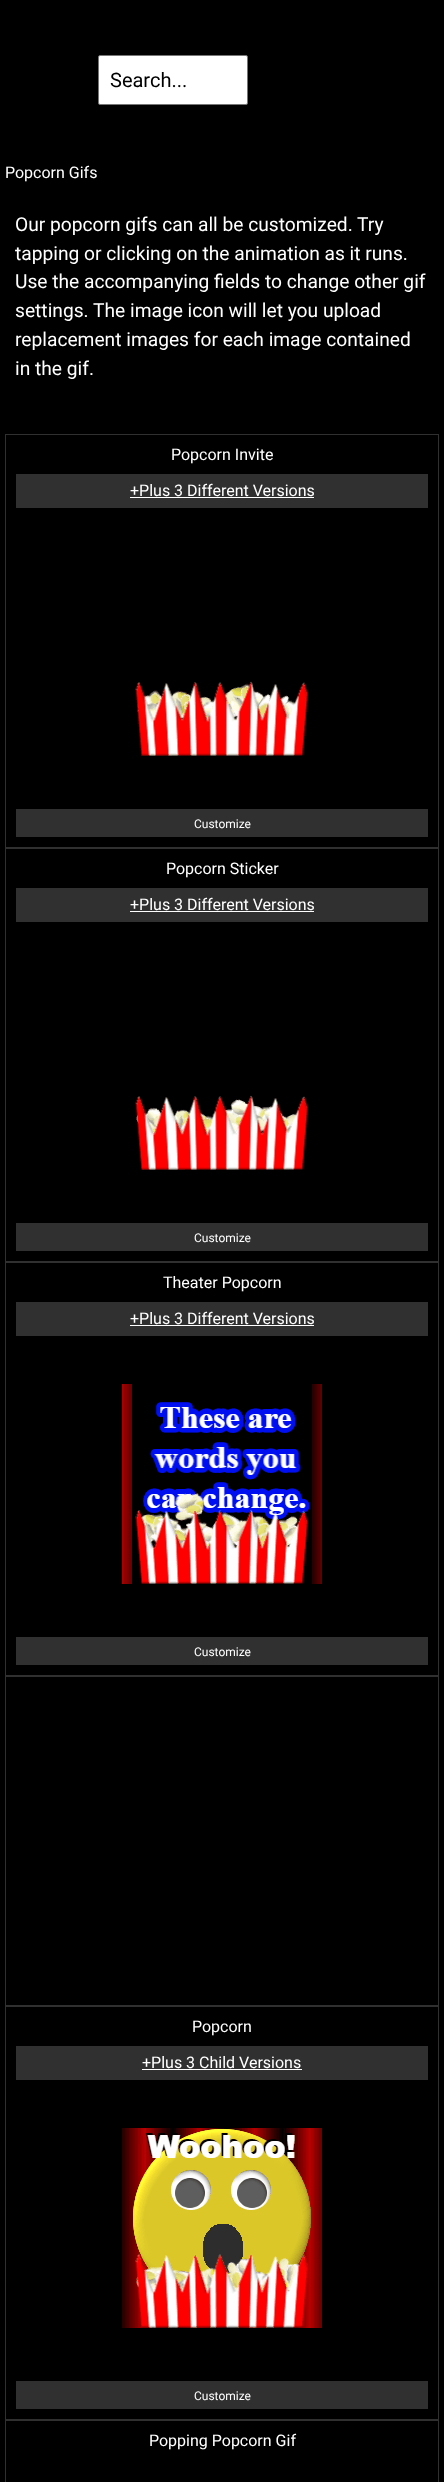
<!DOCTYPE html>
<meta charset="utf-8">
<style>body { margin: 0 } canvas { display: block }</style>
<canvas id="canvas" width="444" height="2482"></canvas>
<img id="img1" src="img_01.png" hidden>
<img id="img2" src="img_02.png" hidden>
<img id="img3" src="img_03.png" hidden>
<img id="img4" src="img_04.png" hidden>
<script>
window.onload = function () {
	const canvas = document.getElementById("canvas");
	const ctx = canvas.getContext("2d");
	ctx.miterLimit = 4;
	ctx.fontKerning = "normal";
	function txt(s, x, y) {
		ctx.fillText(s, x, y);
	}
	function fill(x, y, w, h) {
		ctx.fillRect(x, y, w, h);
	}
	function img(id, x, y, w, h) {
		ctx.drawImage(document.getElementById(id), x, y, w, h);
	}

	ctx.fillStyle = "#000000";
	fill(0, 0, 444, 2482);
	ctx.fillStyle = "#FFFFFF";
	ctx.beginPath();
	ctx.roundRect(98.5, 55.5, 149, 49, 1.5);
	ctx.fill();
	ctx.strokeStyle = "#767676";
	ctx.stroke();
	ctx.strokeStyle = "#303030";
	ctx.strokeRect(5.5, 434.5, 433, 413);
	ctx.fillStyle = "#303030";
	fill(16, 809, 412, 28);
	fill(16, 474, 412, 34);
	ctx.fillStyle = "#FFFFFF";
	fill(130, 497, 184, 1);
	img("img1", 135, 681, 173, 75);
	ctx.strokeRect(5.5, 848.5, 433, 413);
	ctx.fillStyle = "#303030";
	fill(16, 1223, 412, 28);
	fill(16, 888, 412, 34);
	ctx.fillStyle = "#FFFFFF";
	fill(130, 911, 184, 1);
	img("img2", 135, 1095, 173, 75);
	ctx.strokeRect(5.5, 1262.5, 433, 413);
	ctx.fillStyle = "#303030";
	fill(16, 1637, 412, 28);
	fill(16, 1302, 412, 34);
	ctx.fillStyle = "#FFFFFF";
	fill(130, 1325, 184, 1);
	img("img3", 122, 1384, 200, 200);
	ctx.strokeRect(5.5, 1676.5, 433, 329);
	ctx.strokeRect(5.5, 2006.5, 433, 413);
	ctx.fillStyle = "#303030";
	fill(16, 2381, 412, 28);
	fill(16, 2046, 412, 34);
	ctx.fillStyle = "#FFFFFF";
	fill(142, 2069, 160, 1);
	img("img4", 122, 2128, 200, 200);
	ctx.strokeRect(5.5, 2420.5, 433, 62);
	ctx.font = "20px Roboto";
	ctx.fillStyle = "#000000";
	txt("Search...", 110, 87);
	ctx.font = "16px Roboto";
	ctx.fillStyle = "#FFFFFF";
	txt("Popcorn Gifs", 5, 178);
	ctx.font = "19.2px Roboto";
	txt("Our popcorn gifs can all be customized. Try", 15, 231);
	txt("tapping or clicking on the animation as it runs.", 15, 260);
	txt("Use the accompanying fields to change other gif", 15, 288);
	txt("settings. The image icon will let you upload", 15, 317);
	txt("replacement images for each image contained", 15, 346);
	txt("in the gif.", 15, 375);
	ctx.font = "16px Roboto";
	txt("Popcorn Invite", 171, 460);
	txt("+Plus 3 Different Versions", 130, 496);
	ctx.font = "12px Roboto";
	txt("Customize", 194, 828);
	ctx.font = "16px Roboto";
	txt("Popcorn Sticker", 166, 874);
	txt("+Plus 3 Different Versions", 130, 910);
	ctx.font = "12px Roboto";
	txt("Customize", 194, 1242);
	ctx.font = "16px Roboto";
	txt("Theater Popcorn", 163, 1288);
	txt("+Plus 3 Different Versions", 130, 1324);
	ctx.font = "12px Roboto";
	txt("Customize", 194, 1656);
	ctx.font = "16px Roboto";
	txt("Popcorn", 192, 2032);
	txt("+Plus 3 Child Versions", 142, 2068);
	ctx.font = "12px Roboto";
	txt("Customize", 194, 2400);
	ctx.font = "16px Roboto";
	txt("Popping Popcorn Gif", 149, 2446);
};
</script>
